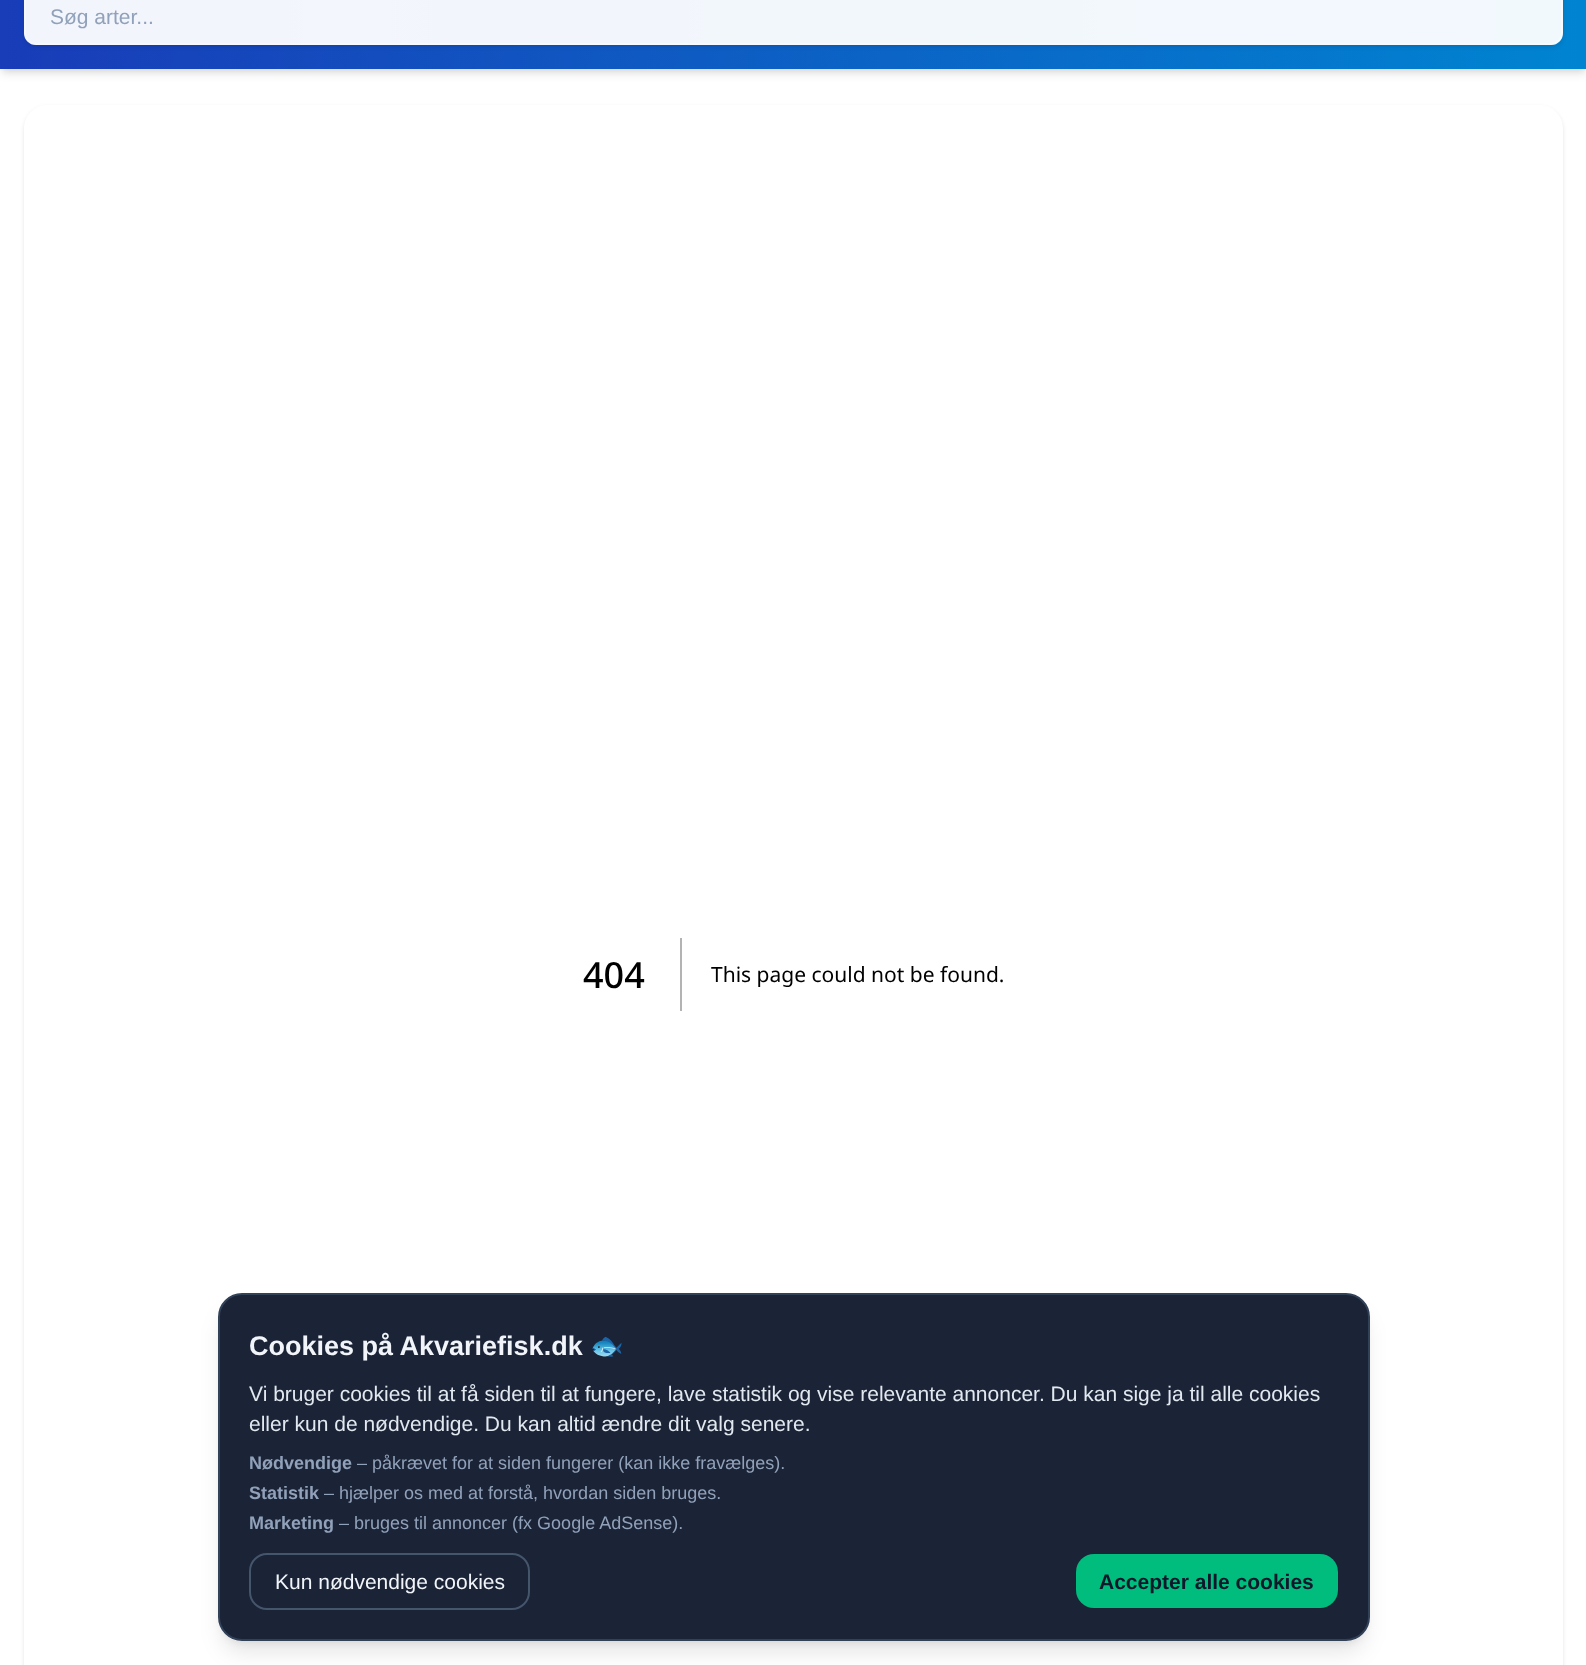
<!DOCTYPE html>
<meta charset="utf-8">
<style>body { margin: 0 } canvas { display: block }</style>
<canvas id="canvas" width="1586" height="1665"></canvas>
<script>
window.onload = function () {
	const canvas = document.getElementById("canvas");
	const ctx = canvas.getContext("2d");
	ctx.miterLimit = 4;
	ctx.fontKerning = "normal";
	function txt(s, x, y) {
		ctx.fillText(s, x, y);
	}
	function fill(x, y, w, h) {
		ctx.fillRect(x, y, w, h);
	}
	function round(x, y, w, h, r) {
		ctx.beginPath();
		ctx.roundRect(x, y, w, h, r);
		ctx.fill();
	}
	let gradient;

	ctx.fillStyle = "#FFFFFF";
	fill(0, 0, 1586, 1665);
	ctx.fillStyle = "rgba(0, 0, 0, 0.1)";
	ctx.filter = "blur(3px)";
	ctx.beginPath();
	ctx.rect(3, -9, 1581, 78);
	ctx.fill();
	ctx.filter = "none";
	ctx.filter = "blur(4.5px)";
	ctx.beginPath();
	ctx.rect(2, -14, 1584, 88);
	ctx.fill();
	ctx.filter = "none";
	gradient = ctx.createLinearGradient(0, -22, 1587, -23);
	gradient.addColorStop(0, "#193CB8");
	gradient.addColorStop(1, "#0084D1");
	ctx.fillStyle = gradient;
	fill(0, 0, 1586, 69);
	ctx.save();
	ctx.beginPath();
	ctx.moveTo(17, 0);
	ctx.lineTo(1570, 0);
	ctx.lineTo(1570, 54);
	ctx.lineTo(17, 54);
	ctx.closePath();
	ctx.moveTo(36, -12);
	ctx.lineTo(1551, -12);
	ctx.bezierCurveTo(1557.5, -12, 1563, -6.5, 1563, 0);
	ctx.lineTo(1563, 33);
	ctx.bezierCurveTo(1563, 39.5, 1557.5, 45, 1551, 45);
	ctx.lineTo(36, 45);
	ctx.bezierCurveTo(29.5, 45, 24, 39.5, 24, 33);
	ctx.lineTo(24, 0);
	ctx.bezierCurveTo(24, -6.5, 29.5, -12, 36, -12);
	ctx.closePath();
	ctx.clip("evenodd");
	ctx.fillStyle = "rgba(0, 0, 0, 0.1)";
	ctx.filter = "blur(2px)";
	ctx.beginPath();
	ctx.roundRect(24, -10, 1539, 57, 12);
	ctx.fill();
	ctx.filter = "none";
	ctx.restore();
	ctx.fillStyle = "rgba(255, 255, 255, 0.95)";
	round(24, -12, 1539, 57, 12);
	ctx.beginPath();
	ctx.roundRect(25, -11, 1537, 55, 11);
	ctx.strokeStyle = "rgba(255, 255, 255, 0.3)";
	ctx.lineWidth = 2;
	ctx.stroke();
	ctx.save();
	ctx.beginPath();
	ctx.moveTo(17, 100);
	ctx.lineTo(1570, 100);
	ctx.lineTo(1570, 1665);
	ctx.lineTo(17, 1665);
	ctx.closePath();
	ctx.moveTo(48, 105);
	ctx.lineTo(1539, 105);
	ctx.bezierCurveTo(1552.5, 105, 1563, 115.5, 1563, 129);
	ctx.lineTo(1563, 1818);
	ctx.bezierCurveTo(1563, 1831.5, 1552.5, 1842, 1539, 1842);
	ctx.lineTo(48, 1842);
	ctx.bezierCurveTo(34.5, 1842, 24, 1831.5, 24, 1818);
	ctx.lineTo(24, 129);
	ctx.bezierCurveTo(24, 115.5, 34.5, 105, 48, 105);
	ctx.closePath();
	ctx.clip("evenodd");
	ctx.fillStyle = "rgba(0, 0, 0, 0.1)";
	ctx.filter = "blur(2px)";
	ctx.beginPath();
	ctx.roundRect(24, 107, 1539, 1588, 24);
	ctx.fill();
	ctx.filter = "none";
	ctx.restore();
	ctx.fillStyle = "#B3B3B3";
	fill(680, 938, 2, 73);
	ctx.save();
	ctx.beginPath();
	ctx.moveTo(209, 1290);
	ctx.lineTo(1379, 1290);
	ctx.lineTo(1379, 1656);
	ctx.lineTo(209, 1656);
	ctx.closePath();
	ctx.moveTo(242, 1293);
	ctx.lineTo(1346, 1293);
	ctx.bezierCurveTo(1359.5, 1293, 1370, 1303.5, 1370, 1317);
	ctx.lineTo(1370, 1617);
	ctx.bezierCurveTo(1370, 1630.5, 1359.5, 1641, 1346, 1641);
	ctx.lineTo(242, 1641);
	ctx.bezierCurveTo(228.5, 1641, 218, 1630.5, 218, 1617);
	ctx.lineTo(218, 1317);
	ctx.bezierCurveTo(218, 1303.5, 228.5, 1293, 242, 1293);
	ctx.closePath();
	ctx.clip("evenodd");
	ctx.fillStyle = "rgba(0, 0, 0, 0.1)";
	ctx.filter = "blur(4.5px)";
	ctx.beginPath();
	ctx.roundRect(224, 1305, 1140, 336, 18);
	ctx.fill();
	ctx.filter = "none";
	ctx.restore();
	ctx.save();
	ctx.beginPath();
	ctx.moveTo(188, 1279);
	ctx.lineTo(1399, 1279);
	ctx.lineTo(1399, 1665);
	ctx.lineTo(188, 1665);
	ctx.closePath();
	ctx.moveTo(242, 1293);
	ctx.lineTo(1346, 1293);
	ctx.bezierCurveTo(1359.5, 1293, 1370, 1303.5, 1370, 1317);
	ctx.lineTo(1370, 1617);
	ctx.bezierCurveTo(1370, 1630.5, 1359.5, 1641, 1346, 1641);
	ctx.lineTo(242, 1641);
	ctx.bezierCurveTo(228.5, 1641, 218, 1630.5, 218, 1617);
	ctx.lineTo(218, 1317);
	ctx.bezierCurveTo(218, 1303.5, 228.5, 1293, 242, 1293);
	ctx.closePath();
	ctx.clip("evenodd");
	ctx.fillStyle = "rgba(0, 0, 0, 0.1)";
	ctx.filter = "blur(11px)";
	ctx.beginPath();
	ctx.roundRect(222, 1313, 1143, 339, 20);
	ctx.fill();
	ctx.filter = "none";
	ctx.restore();
	ctx.fillStyle = "rgba(15, 23, 43, 0.95)";
	ctx.beginPath();
	ctx.roundRect(219, 1294, 1150, 346, 23);
	ctx.fill();
	ctx.strokeStyle = "#314158";
	ctx.stroke();
	ctx.beginPath();
	ctx.roundRect(250, 1554, 279, 55, 17);
	ctx.strokeStyle = "#45556C";
	ctx.stroke();
	ctx.fillStyle = "#00BC7D";
	round(1076, 1554, 262, 54, 18);
	ctx.font = "21px Liberation Sans";
	ctx.fillStyle = "#90A1B9";
	txt("Søg arter...", 50, 24);
	ctx.font = "500 36px Noto Sans";
	ctx.fillStyle = "#000000";
	txt("404", 583, 988);
	ctx.font = "21px Noto Sans";
	txt("This page could not be found.", 711, 982);
	ctx.font = "bold 27px Liberation Sans";
	ctx.fillStyle = "#F1F5F9";
	txt("Cookies på Akvariefisk.dk", 249, 1355);
	ctx.font = "bold 27px Noto Color Emoji";
	txt("🐟", 590, 1355);
	ctx.font = "21px Liberation Sans";
	ctx.fillStyle = "#E2E8F0";
	txt("Vi bruger cookies til at få siden til at fungere, lave statistik og vise relevante annoncer. Du kan sige ja til alle cookies", 249, 1401);
	txt("eller kun de nødvendige. Du kan altid ændre dit valg senere.", 249, 1431);
	ctx.font = "bold 18px Liberation Sans";
	ctx.fillStyle = "#90A1B9";
	txt("Nødvendige", 249, 1469);
	ctx.font = "18px Liberation Sans";
	txt("– påkrævet for at siden fungerer (kan ikke fravælges).", 357, 1469);
	ctx.font = "bold 18px Liberation Sans";
	txt("Statistik", 249, 1499);
	ctx.font = "18px Liberation Sans";
	txt("– hjælper os med at forstå, hvordan siden bruges.", 324, 1499);
	ctx.font = "bold 18px Liberation Sans";
	txt("Marketing", 249, 1529);
	ctx.font = "18px Liberation Sans";
	txt("– bruges til annoncer (fx Google AdSense).", 339, 1529);
	ctx.font = "21px Liberation Sans";
	ctx.fillStyle = "#F1F5F9";
	txt("Kun nødvendige cookies", 275, 1589);
	ctx.font = "bold 21px Liberation Sans";
	ctx.fillStyle = "#0F172B";
	txt("Accepter alle cookies", 1099, 1589);
};
</script>
